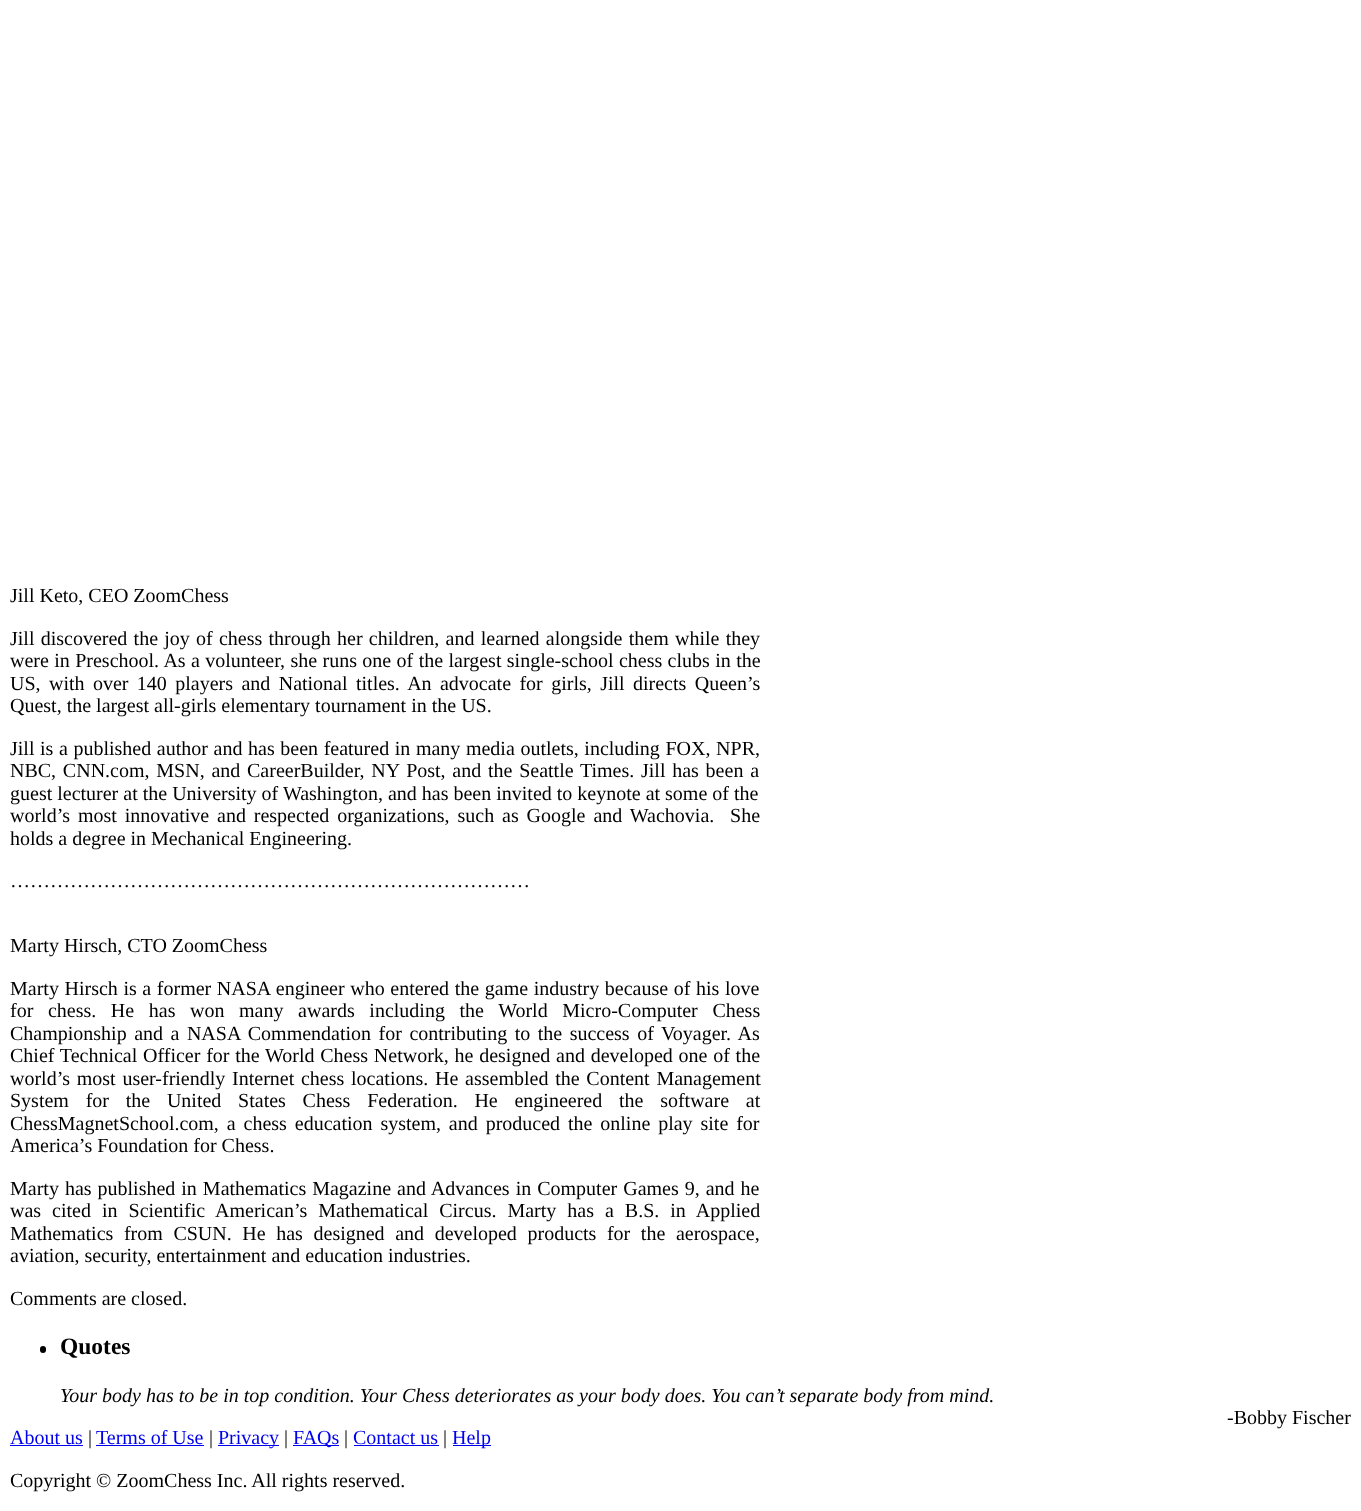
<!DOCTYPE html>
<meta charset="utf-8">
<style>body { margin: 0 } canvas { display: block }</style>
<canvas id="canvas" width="1361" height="1511"></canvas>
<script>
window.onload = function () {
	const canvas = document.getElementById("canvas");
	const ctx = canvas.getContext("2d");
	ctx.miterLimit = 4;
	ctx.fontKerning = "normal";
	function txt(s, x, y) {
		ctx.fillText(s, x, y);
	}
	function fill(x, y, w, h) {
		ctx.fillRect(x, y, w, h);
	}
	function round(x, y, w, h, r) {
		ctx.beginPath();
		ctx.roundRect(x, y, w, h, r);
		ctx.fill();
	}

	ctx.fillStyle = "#FFFFFF";
	fill(0, 0, 1361, 1511);
	ctx.fillStyle = "#000000";
	round(40, 1346, 6, 7, 3);
	ctx.fillStyle = "#0000EE";
	fill(10, 1445, 73, 1);
	fill(96, 1445, 108, 1);
	fill(218, 1445, 61, 1);
	fill(293, 1445, 46, 1);
	fill(354, 1445, 85, 1);
	fill(453, 1445, 38, 1);
	ctx.font = "20px Liberation Serif";
	ctx.fillStyle = "#000000";
	txt("Jill Keto, CEO ZoomChess", 10, 602);
	ctx.wordSpacing = "1.25px";
	txt("Jill discovered the joy of chess through her children, and learned alongside them while they", 10, 645);
	ctx.wordSpacing = "0.4px";
	txt("were in Preschool. As a volunteer, she runs one of the largest single-school chess clubs in the", 10, 667);
	ctx.wordSpacing = "3.4px";
	txt("US, with over 140 players and National titles. An advocate for girls, Jill directs Queen’s", 10, 690);
	ctx.wordSpacing = "0px";
	txt("Quest, the largest all-girls elementary tournament in the US.", 10, 712);
	ctx.wordSpacing = "0.6px";
	txt("Jill is a published author and has been featured in many media outlets, including FOX, NPR,", 10, 755);
	ctx.wordSpacing = "1.75px";
	txt("NBC, CNN.com, MSN, and CareerBuilder, NY Post, and the Seattle Times. Jill has been a", 10, 777);
	ctx.wordSpacing = "0px";
	txt("guest lecturer at the University of Washington, and has been invited to keynote at some of the", 10, 800);
	ctx.wordSpacing = "2.9px";
	txt("world’s most innovative and respected organizations, such as Google and Wachovia.  She", 10, 822);
	ctx.wordSpacing = "0px";
	txt("holds a degree in Mechanical Engineering.", 10, 845);
	txt("……………………………………………………………………", 10, 887);
	txt("Marty Hirsch, CTO ZoomChess", 10, 952);
	ctx.wordSpacing = "0.6px";
	txt("Marty Hirsch is a former NASA engineer who entered the game industry because of his love", 10, 995);
	ctx.wordSpacing = "9.6px";
	txt("for chess. He has won many awards including the World Micro-Computer Chess", 10, 1017);
	ctx.wordSpacing = "2.5px";
	txt("Championship and a NASA Commendation for contributing to the success of Voyager. As", 10, 1040);
	ctx.wordSpacing = "0.75px";
	txt("Chief Technical Officer for the World Chess Network, he designed and developed one of the", 10, 1062);
	ctx.wordSpacing = "1.75px";
	txt("world’s most user-friendly Internet chess locations. He assembled the Content Management", 10, 1085);
	ctx.wordSpacing = "11.75px";
	txt("System for the United States Chess Federation. He engineered the software at", 10, 1107);
	ctx.wordSpacing = "2.9px";
	txt("ChessMagnetSchool.com, a chess education system, and produced the online play site for", 10, 1130);
	ctx.wordSpacing = "0px";
	txt("America’s Foundation for Chess.", 10, 1152);
	ctx.wordSpacing = "1px";
	txt("Marty has published in Mathematics Magazine and Advances in Computer Games 9, and he", 10, 1195);
	ctx.wordSpacing = "6px";
	txt("was cited in Scientific American’s Mathematical Circus. Marty has a B.S. in Applied", 10, 1217);
	ctx.wordSpacing = "5.6px";
	txt("Mathematics from CSUN. He has designed and developed products for the aerospace,", 10, 1240);
	ctx.wordSpacing = "0px";
	txt("aviation, security, entertainment and education industries.", 10, 1262);
	txt("Comments are closed.", 10, 1305);
	ctx.font = "bold 23.5px Liberation Serif";
	txt("Quotes", 60, 1354);
	ctx.font = "italic 20px Liberation Serif";
	txt("Your body has to be in top condition. Your Chess deteriorates as your body does. You can’t separate body from mind.", 60, 1402);
	ctx.font = "20px Liberation Serif";
	txt("-Bobby Fischer", 1227, 1424);
	ctx.fillStyle = "#0000EE";
	txt("About us", 10, 1444);
	ctx.fillStyle = "#000000";
	txt("|", 88, 1444);
	ctx.fillStyle = "#0000EE";
	txt("Terms of Use", 96, 1444);
	ctx.fillStyle = "#000000";
	txt("|", 209, 1444);
	ctx.fillStyle = "#0000EE";
	txt("Privacy", 218, 1444);
	ctx.fillStyle = "#000000";
	txt("|", 284, 1444);
	ctx.fillStyle = "#0000EE";
	txt("FAQs", 293, 1444);
	ctx.fillStyle = "#000000";
	txt("|", 344, 1444);
	ctx.fillStyle = "#0000EE";
	txt("Contact us", 353, 1444);
	ctx.fillStyle = "#000000";
	txt("|", 443, 1444);
	ctx.fillStyle = "#0000EE";
	txt("Help", 452, 1444);
	ctx.fillStyle = "#000000";
	txt("Copyright © ZoomChess Inc. All rights reserved.", 10, 1487);
};
</script>
